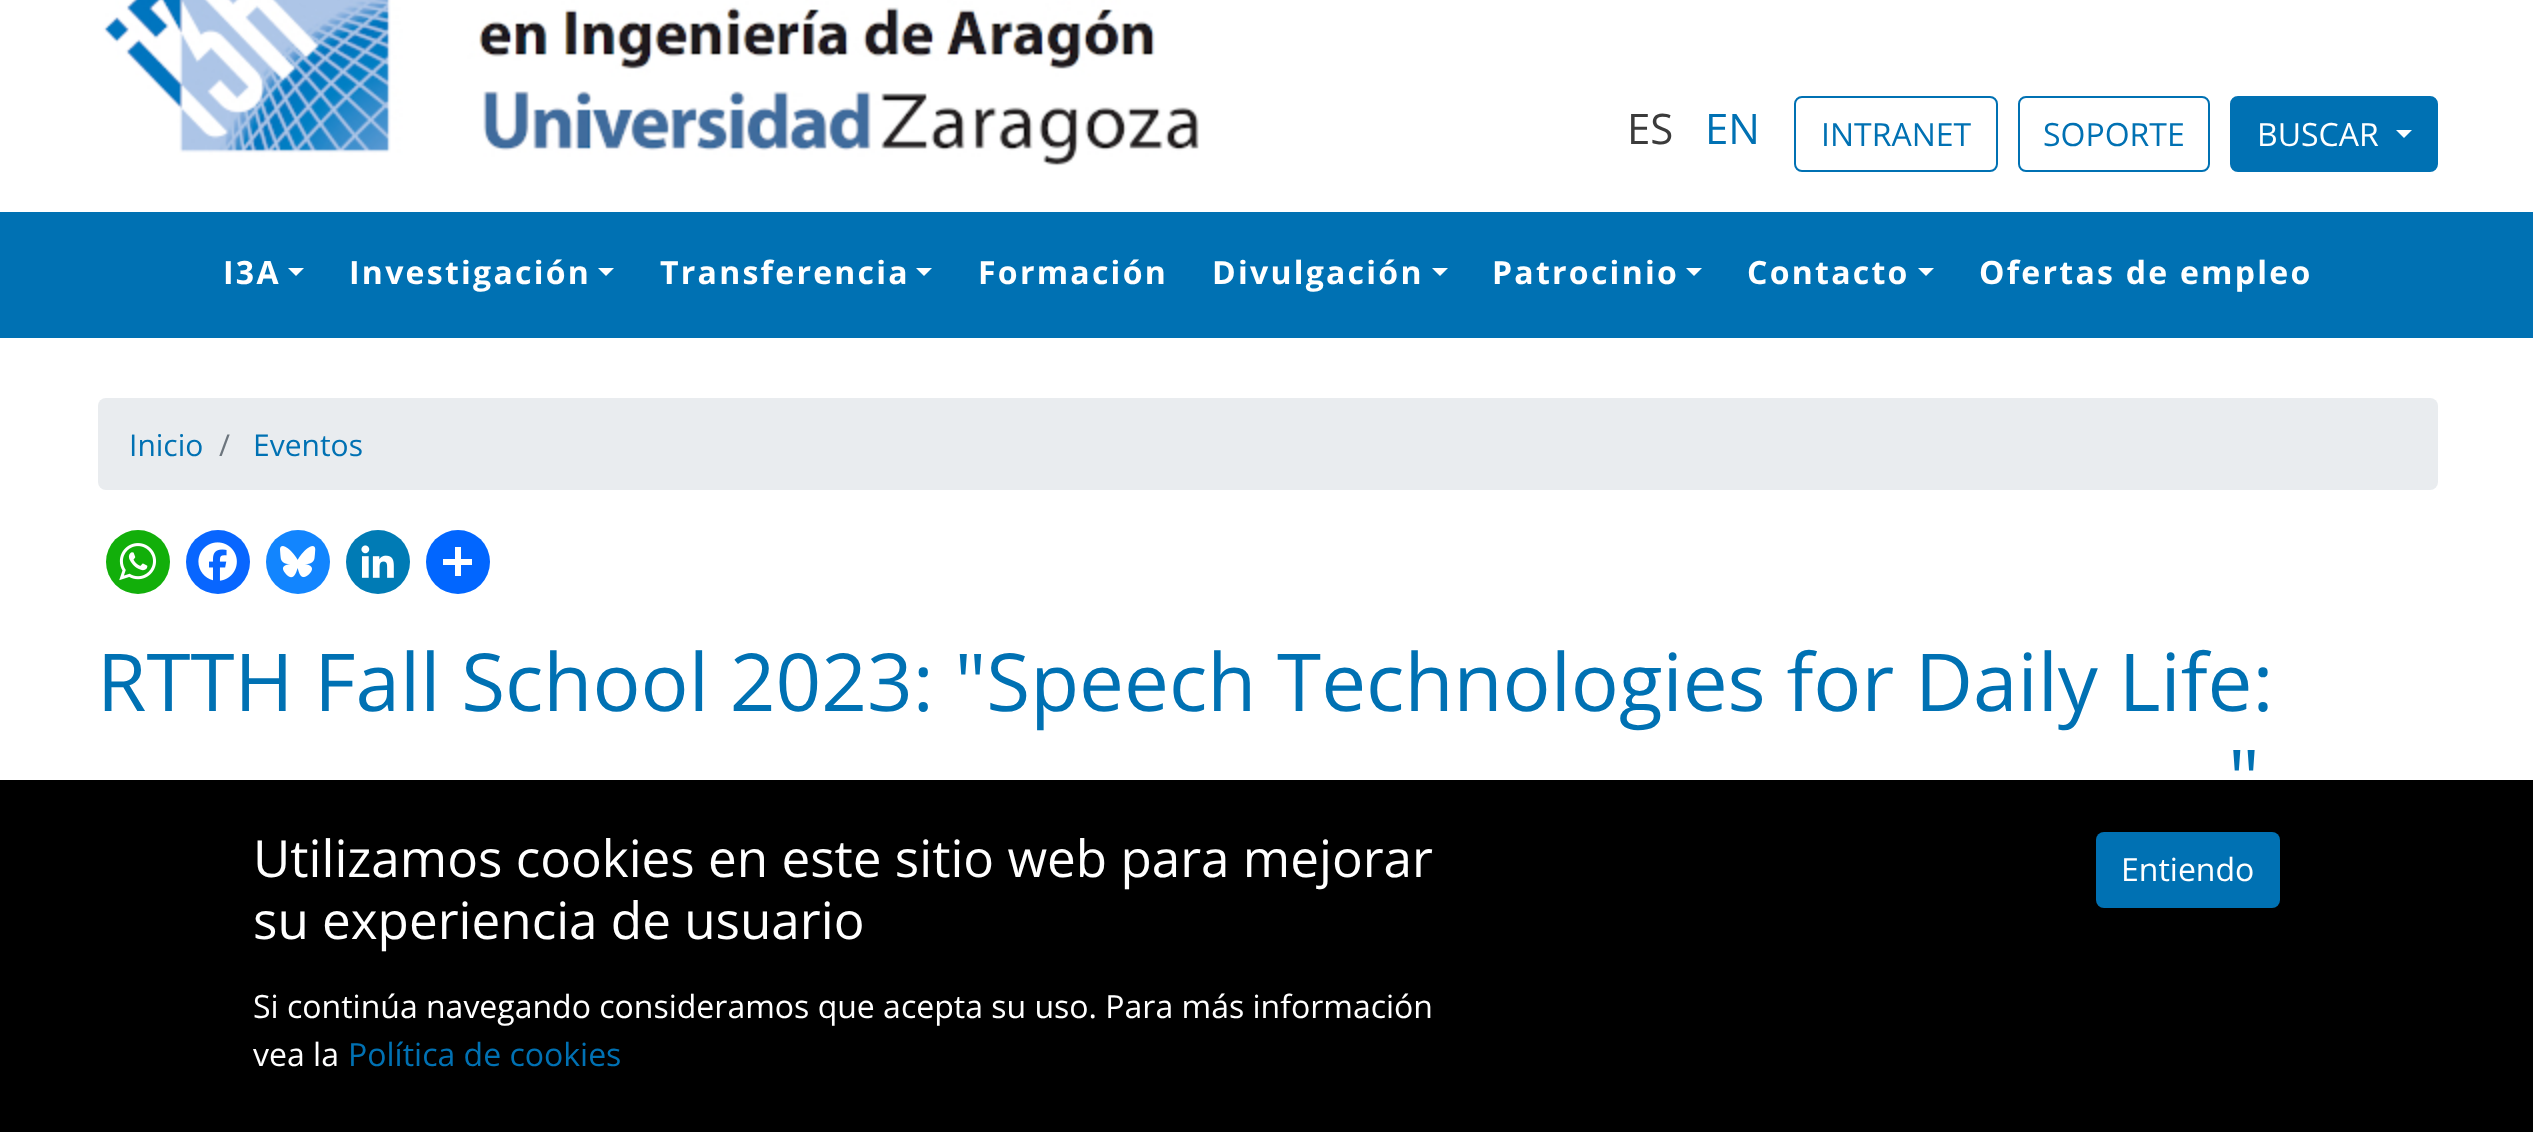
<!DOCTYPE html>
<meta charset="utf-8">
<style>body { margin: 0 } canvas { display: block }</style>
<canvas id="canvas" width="2533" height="1132"></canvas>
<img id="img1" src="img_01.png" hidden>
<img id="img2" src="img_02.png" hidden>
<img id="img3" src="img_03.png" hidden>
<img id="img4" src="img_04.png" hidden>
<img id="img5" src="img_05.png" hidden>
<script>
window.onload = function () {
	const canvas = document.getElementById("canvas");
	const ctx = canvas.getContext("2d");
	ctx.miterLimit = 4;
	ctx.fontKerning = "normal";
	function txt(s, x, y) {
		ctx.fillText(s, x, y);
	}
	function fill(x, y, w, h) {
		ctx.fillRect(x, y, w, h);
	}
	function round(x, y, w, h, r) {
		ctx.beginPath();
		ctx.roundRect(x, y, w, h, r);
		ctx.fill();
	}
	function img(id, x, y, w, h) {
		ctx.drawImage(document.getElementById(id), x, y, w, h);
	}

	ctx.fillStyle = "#FFFFFF";
	fill(0, 0, 2533, 1132);
	img("img1", 103, 0, 1096, 166);
	ctx.beginPath();
	ctx.roundRect(1795, 97, 202, 74, 7);
	ctx.strokeStyle = "#0071B3";
	ctx.lineWidth = 2;
	ctx.stroke();
	ctx.beginPath();
	ctx.roundRect(2019, 97, 190, 74, 7);
	ctx.stroke();
	ctx.fillStyle = "#0071B3";
	ctx.beginPath();
	ctx.roundRect(2231, 97, 206, 74, 7);
	ctx.fill();
	ctx.stroke();
	ctx.fillStyle = "#FFFFFF";
	ctx.beginPath();
	ctx.moveTo(2396, 130);
	ctx.lineTo(2412, 130);
	ctx.lineTo(2404, 138);
	ctx.closePath();
	ctx.fill();
	ctx.fillStyle = "#0071B3";
	fill(0, 212, 2533, 126);
	ctx.fillStyle = "#FFFFFF";
	ctx.beginPath();
	ctx.moveTo(288, 268);
	ctx.lineTo(304, 268);
	ctx.lineTo(296, 276);
	ctx.closePath();
	ctx.fill();
	ctx.beginPath();
	ctx.moveTo(598, 268);
	ctx.lineTo(614, 268);
	ctx.lineTo(606, 276);
	ctx.closePath();
	ctx.fill();
	ctx.beginPath();
	ctx.moveTo(916, 268);
	ctx.lineTo(932, 268);
	ctx.lineTo(924, 276);
	ctx.closePath();
	ctx.fill();
	ctx.beginPath();
	ctx.moveTo(1432, 268);
	ctx.lineTo(1448, 268);
	ctx.lineTo(1440, 276);
	ctx.closePath();
	ctx.fill();
	ctx.beginPath();
	ctx.moveTo(1686, 268);
	ctx.lineTo(1702, 268);
	ctx.lineTo(1694, 276);
	ctx.closePath();
	ctx.fill();
	ctx.beginPath();
	ctx.moveTo(1918, 268);
	ctx.lineTo(1934, 268);
	ctx.lineTo(1926, 276);
	ctx.closePath();
	ctx.fill();
	ctx.fillStyle = "#E9ECEF";
	round(98, 398, 2340, 92, 8);
	ctx.fillStyle = "#12AF0A";
	ctx.beginPath();
	ctx.arc(138, 562, 32, 0, Math.PI * 2);
	ctx.fill();
	img("img2", 119, 543, 38, 38);
	ctx.fillStyle = "#0866FF";
	ctx.beginPath();
	ctx.arc(218, 562, 32, 0, Math.PI * 2);
	ctx.fill();
	img("img3", 198, 542, 39, 39);
	ctx.fillStyle = "#1285FE";
	ctx.beginPath();
	ctx.arc(298, 562, 32, 0, Math.PI * 2);
	ctx.fill();
	img("img4", 280, 546, 36, 32);
	ctx.fillStyle = "#007BB5";
	ctx.beginPath();
	ctx.arc(378, 562, 32, 0, Math.PI * 2);
	ctx.fill();
	img("img5", 361, 545, 33, 33);
	ctx.fillStyle = "#0166FF";
	ctx.beginPath();
	ctx.arc(458, 562, 32, 0, Math.PI * 2);
	ctx.fill();
	ctx.fillStyle = "#FFFFFF";
	fill(455, 547, 6, 29);
	fill(443, 559, 29, 6);
	ctx.fillStyle = "#000000";
	fill(0, 780, 2533, 352);
	ctx.fillStyle = "#0071B3";
	round(2096, 832, 184, 76, 8);
	ctx.font = "42px Open Sans";
	ctx.fillStyle = "#3B3B3B";
	txt("ES", 1627, 144);
	ctx.fillStyle = "#0071B3";
	txt("EN", 1705, 144);
	ctx.font = "32px Open Sans";
	txt("INTRANET", 1821, 146);
	txt("SOPORTE", 2043, 146);
	ctx.fillStyle = "#FFFFFF";
	txt("BUSCAR", 2257, 146);
	ctx.letterSpacing = "2.25px";
	ctx.font = "bold 32px Open Sans";
	txt("I3A", 223, 284);
	txt("Investigación", 349, 284);
	txt("Transferencia", 660, 284);
	txt("Formación", 978, 284);
	txt("Divulgación", 1212, 284);
	txt("Patrocinio", 1492, 284);
	txt("Contacto", 1747, 284);
	txt("Ofertas de empleo", 1979, 284);
	ctx.letterSpacing = "0px";
	ctx.font = "30px Open Sans";
	ctx.fillStyle = "#0071B3";
	txt("Inicio", 129, 456);
	ctx.fillStyle = "#6C757D";
	txt("/", 219, 456);
	ctx.fillStyle = "#0071B3";
	txt("Eventos", 253, 456);
	ctx.font = "80px Open Sans";
	txt("RTTH Fall School 2023: \"Speech Technologies for Daily Life:", 97, 711);
	txt("\"", 2228, 807);
	ctx.font = "51.2px Open Sans";
	ctx.fillStyle = "#FFFFFF";
	txt("Utilizamos cookies en este sitio web para mejorar", 253, 877);
	txt("su experiencia de usuario", 253, 939);
	ctx.font = "32px Open Sans";
	txt("Si continúa navegando consideramos que acepta su uso. Para más información", 253, 1018);
	txt("vea la", 253, 1066);
	ctx.fillStyle = "#0071B3";
	txt("Política de cookies", 348, 1066);
	ctx.fillStyle = "#FFFFFF";
	txt("Entiendo", 2121, 881);
};
</script>
